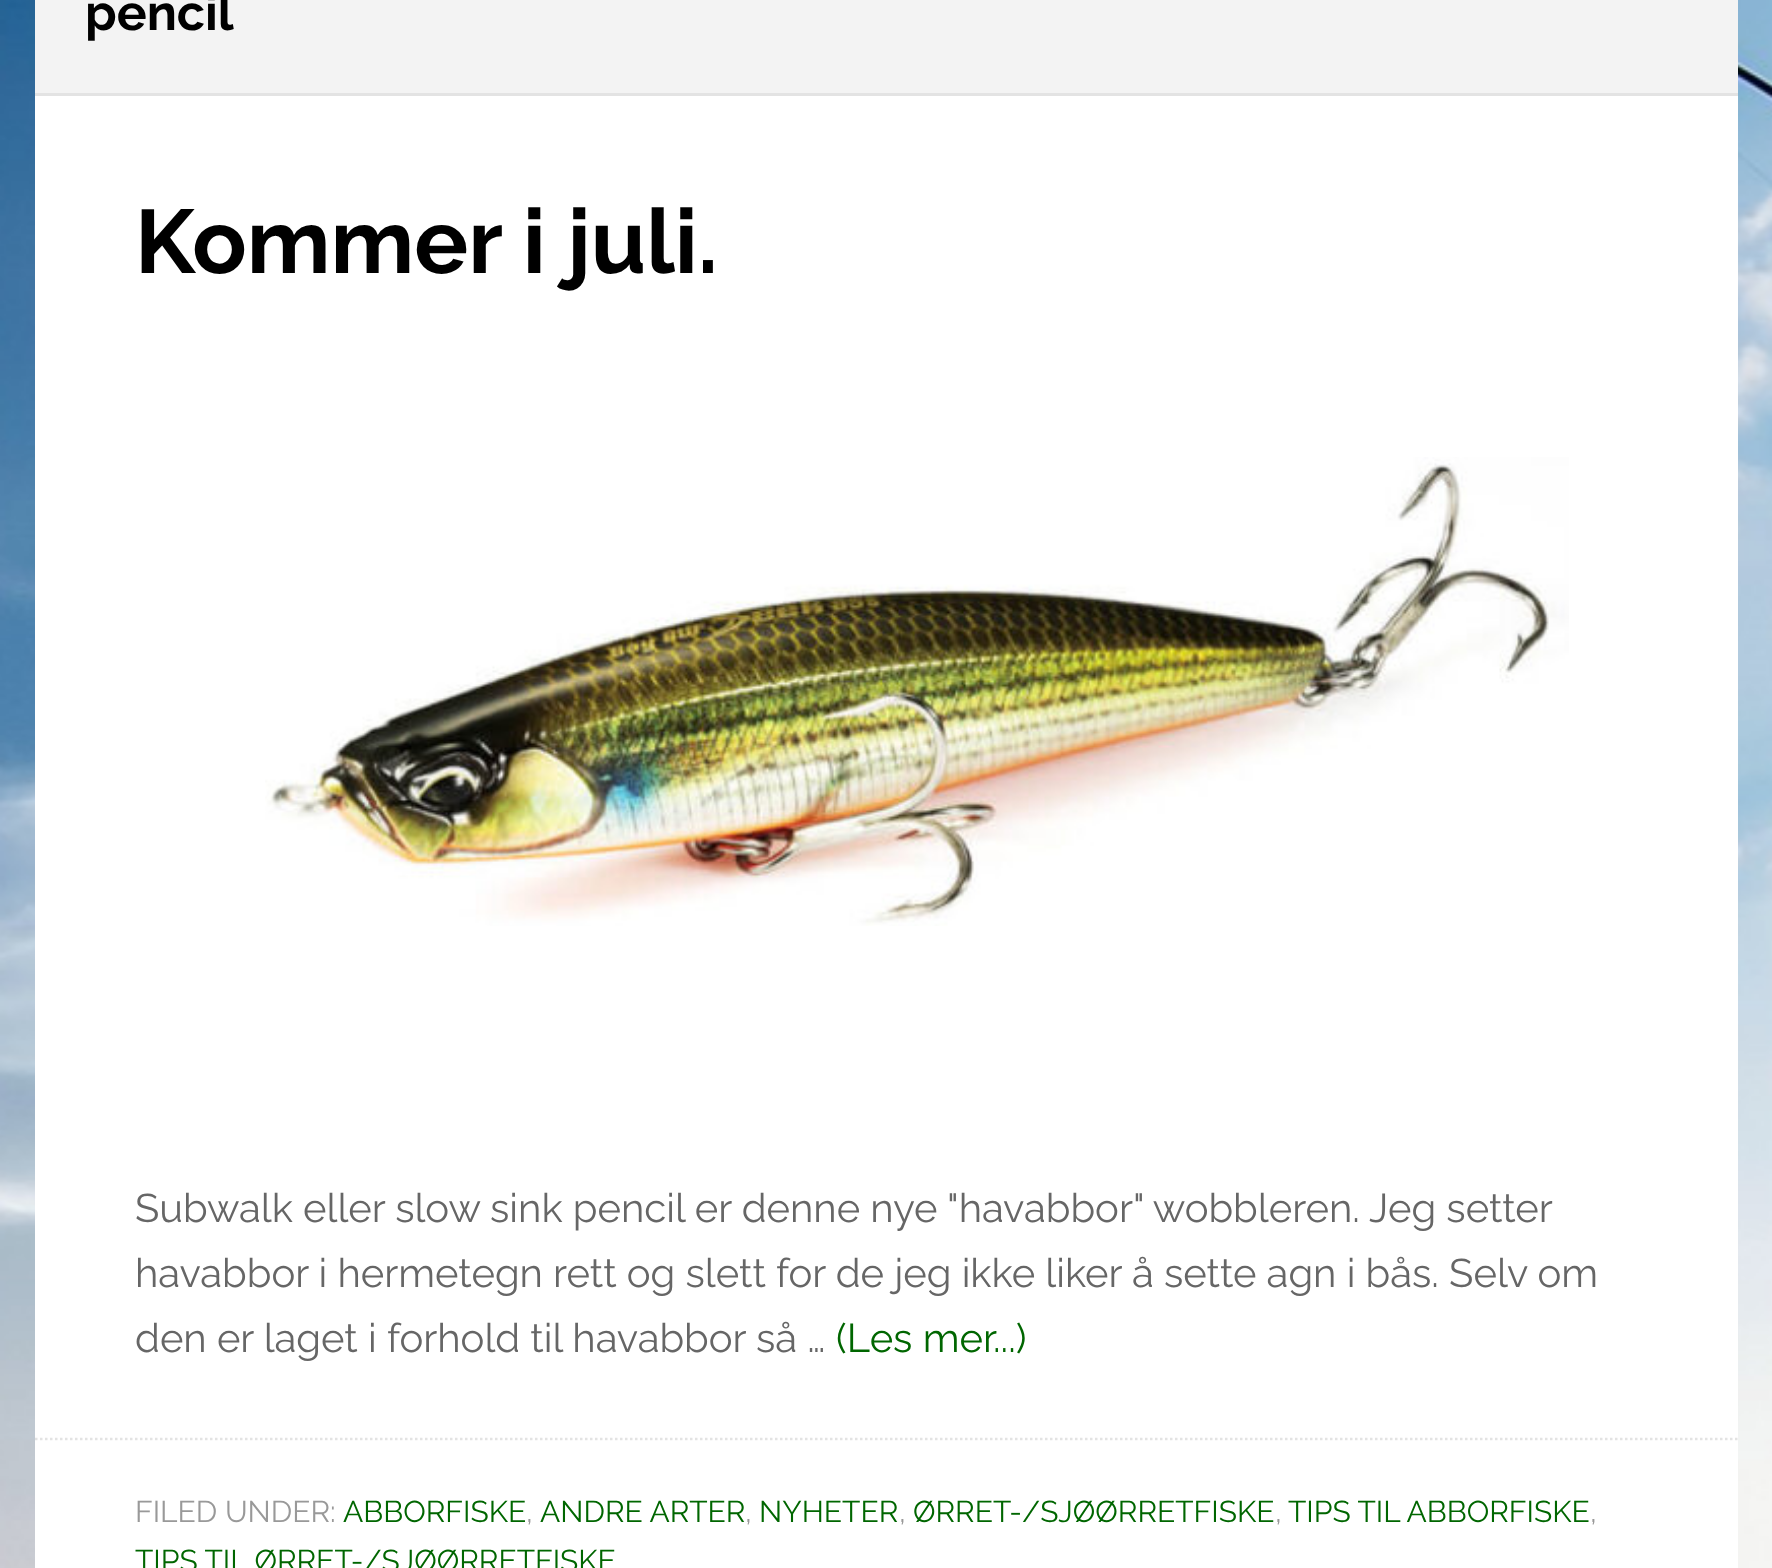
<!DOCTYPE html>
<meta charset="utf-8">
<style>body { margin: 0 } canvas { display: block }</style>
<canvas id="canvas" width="1772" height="1568"></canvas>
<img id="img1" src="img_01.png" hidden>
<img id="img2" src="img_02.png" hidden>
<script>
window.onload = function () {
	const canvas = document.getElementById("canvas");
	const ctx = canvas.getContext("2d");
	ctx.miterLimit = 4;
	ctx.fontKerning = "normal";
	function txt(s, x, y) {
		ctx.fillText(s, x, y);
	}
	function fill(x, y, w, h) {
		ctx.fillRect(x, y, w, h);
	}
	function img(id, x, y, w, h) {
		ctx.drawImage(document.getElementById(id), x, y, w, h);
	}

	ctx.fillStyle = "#FFFFFF";
	fill(0, 0, 1772, 1568);
	img("img1", 0, 0, 1772, 1568);
	fill(35, 96, 1703, 1472);
	ctx.fillStyle = "#F3F3F3";
	fill(35, 0, 1703, 93);
	ctx.fillStyle = "#E3E3E3";
	fill(35, 93, 1703, 3);
	img("img2", 265, 457, 1304, 469);
	ctx.beginPath();
	ctx.moveTo(35, 1439);
	ctx.lineTo(1737.5, 1439);
	ctx.strokeStyle = "#E3E3E3";
	ctx.lineWidth = 2.5;
	ctx.setLineDash([2.5, 2.5]);
	ctx.stroke();
	ctx.font = "bold 50px Raleway";
	ctx.fillStyle = "#000000";
	txt("pencil", 85, 30);
	ctx.font = "bold 90px Raleway";
	txt("Kommer i juli.", 135, 273);
	ctx.font = "40px Raleway";
	ctx.fillStyle = "#666666";
	txt("Subwalk eller slow sink pencil er denne nye \"havabbor\" wobbleren. Jeg setter", 135, 1222);
	txt("havabbor i hermetegn rett og slett for de jeg ikke liker å sette agn i bås. Selv om", 135, 1287);
	txt("den er laget i forhold til havabbor så …", 135, 1352);
	ctx.fillStyle = "#006600";
	txt("(Les mer...)", 836, 1352);
	ctx.font = "30px Raleway";
	ctx.fillStyle = "#999999";
	txt("FILED UNDER:", 135, 1522);
	ctx.fillStyle = "#006600";
	txt("ABBORFISKE", 343, 1522);
	ctx.fillStyle = "#999999";
	txt(",", 526, 1522);
	ctx.fillStyle = "#006600";
	txt("ANDRE ARTER", 540, 1522);
	ctx.fillStyle = "#999999";
	txt(",", 745, 1522);
	ctx.fillStyle = "#006600";
	txt("NYHETER", 759, 1522);
	ctx.fillStyle = "#999999";
	txt(",", 899, 1522);
	ctx.fillStyle = "#006600";
	txt("ØRRET-/SJØØRRETFISKE", 913, 1522);
	ctx.fillStyle = "#999999";
	txt(",", 1275, 1522);
	ctx.fillStyle = "#006600";
	txt("TIPS TIL ABBORFISKE", 1288, 1522);
	ctx.fillStyle = "#999999";
	txt(",", 1590, 1522);
	ctx.fillStyle = "#006600";
	txt("TIPS TIL ØRRET-/SJØØRRETFISKE", 135, 1571);
};
</script>
